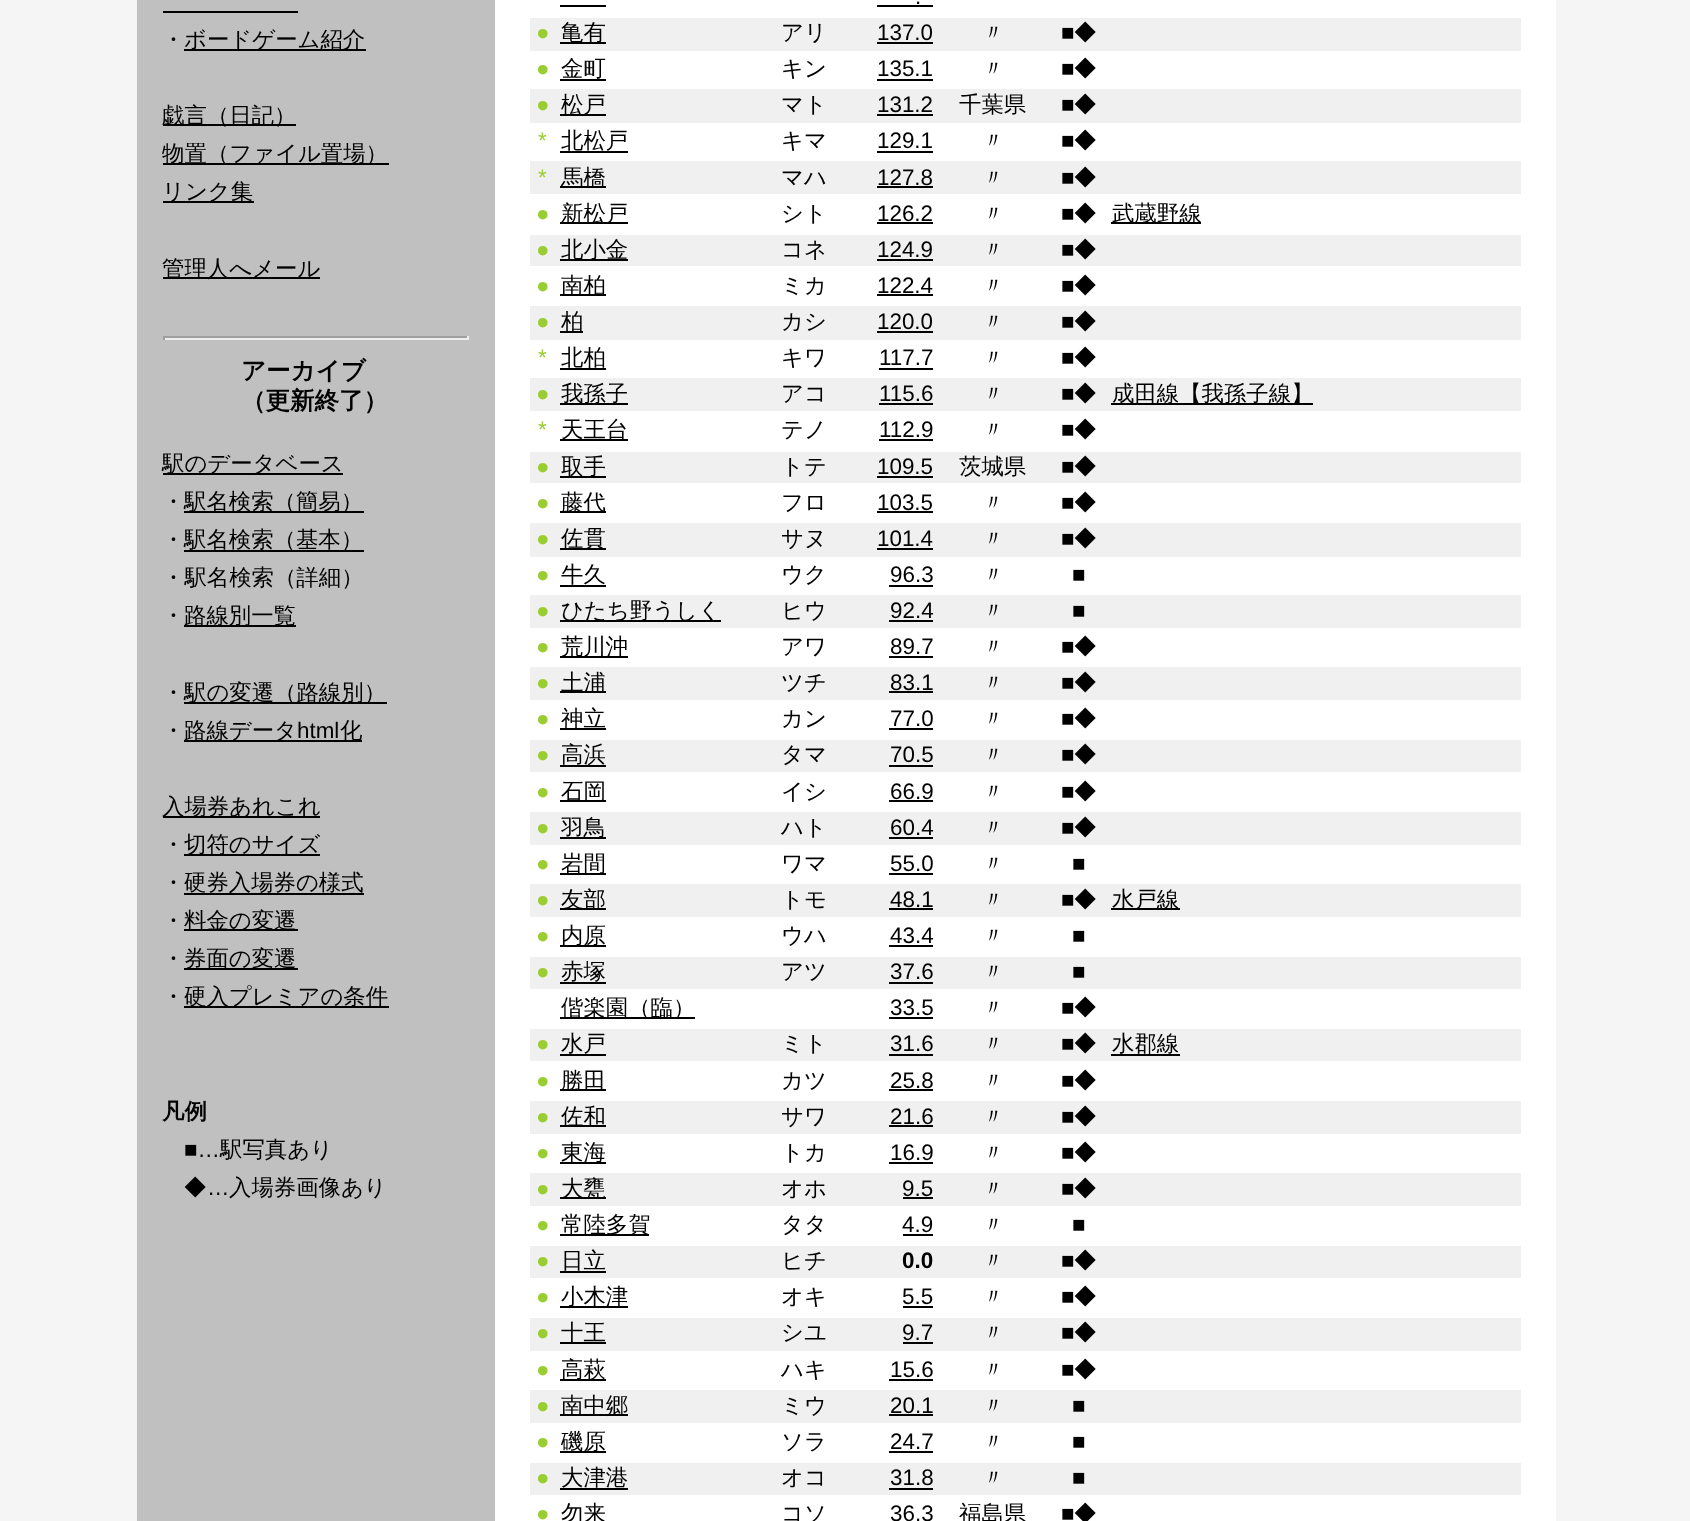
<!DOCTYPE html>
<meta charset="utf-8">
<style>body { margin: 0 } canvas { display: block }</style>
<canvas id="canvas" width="1690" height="1521"></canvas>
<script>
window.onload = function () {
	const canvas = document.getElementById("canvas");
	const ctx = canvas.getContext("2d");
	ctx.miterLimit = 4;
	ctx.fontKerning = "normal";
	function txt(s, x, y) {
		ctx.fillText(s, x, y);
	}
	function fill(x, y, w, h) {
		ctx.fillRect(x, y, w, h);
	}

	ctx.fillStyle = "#F5F5F5";
	fill(0, 0, 1690, 1521);
	ctx.fillStyle = "#C0C0C0";
	fill(137, 0, 358, 1521);
	ctx.fillStyle = "#000000";
	fill(163, 11, 135, 2);
	fill(184, 49, 182, 2);
	fill(163, 124, 133, 2);
	fill(163, 163, 226, 2);
	fill(163, 201, 91, 2);
	fill(163, 277, 157, 2);
	ctx.fillStyle = "#9F9F9F";
	fill(163, 336, 306, 2);
	ctx.fillStyle = "#EEEEEE";
	fill(467, 336, 2, 4);
	fill(163, 338, 306, 2);
	ctx.fillStyle = "#9F9F9F";
	fill(163, 336, 2, 4);
	ctx.fillStyle = "#000000";
	fill(163, 473, 180, 2);
	fill(184, 511, 180, 2);
	fill(184, 550, 180, 2);
	fill(184, 625, 112, 2);
	fill(184, 702, 203, 2);
	fill(184, 740, 178, 2);
	fill(163, 816, 157, 2);
	fill(184, 854, 136, 2);
	fill(184, 893, 180, 2);
	fill(184, 929, 114, 2);
	fill(184, 968, 114, 2);
	fill(184, 1006, 205, 2);
	ctx.fillStyle = "#FFFFFF";
	fill(495, 0, 1061, 1521);
	ctx.fillStyle = "#000000";
	fill(877, 5, 56, 2);
	fill(560, 5, 46, 2);
	ctx.fillStyle = "#F0F0F0";
	fill(530, 18, 991, 33);
	ctx.fillStyle = "#000000";
	fill(560, 42, 46, 2);
	fill(877, 42, 56, 2);
	fill(560, 79, 46, 2);
	fill(877, 79, 56, 2);
	ctx.fillStyle = "#F0F0F0";
	fill(530, 89, 991, 34);
	ctx.fillStyle = "#000000";
	fill(560, 114, 46, 2);
	fill(877, 114, 56, 2);
	fill(560, 151, 68, 2);
	fill(877, 151, 56, 2);
	ctx.fillStyle = "#F0F0F0";
	fill(530, 161, 991, 33);
	ctx.fillStyle = "#000000";
	fill(560, 186, 46, 2);
	fill(877, 186, 56, 2);
	fill(560, 222, 68, 2);
	fill(877, 222, 56, 2);
	fill(1111, 222, 90, 2);
	ctx.fillStyle = "#F0F0F0";
	fill(530, 235, 991, 31);
	ctx.fillStyle = "#000000";
	fill(560, 259, 68, 2);
	fill(877, 259, 56, 2);
	fill(560, 294, 46, 2);
	fill(877, 294, 56, 2);
	ctx.fillStyle = "#F0F0F0";
	fill(530, 306, 991, 34);
	ctx.fillStyle = "#000000";
	fill(560, 331, 23, 2);
	fill(877, 331, 56, 2);
	fill(560, 368, 46, 2);
	fill(879, 368, 54, 2);
	ctx.fillStyle = "#F0F0F0";
	fill(530, 378, 991, 33);
	ctx.fillStyle = "#000000";
	fill(560, 403, 68, 2);
	fill(879, 403, 54, 2);
	fill(1111, 403, 202, 2);
	fill(560, 439, 68, 2);
	fill(879, 439, 54, 2);
	ctx.fillStyle = "#F0F0F0";
	fill(530, 452, 991, 31);
	ctx.fillStyle = "#000000";
	fill(560, 476, 46, 2);
	fill(877, 476, 56, 2);
	fill(560, 511, 46, 2);
	fill(877, 511, 56, 2);
	ctx.fillStyle = "#F0F0F0";
	fill(530, 523, 991, 34);
	ctx.fillStyle = "#000000";
	fill(560, 548, 46, 2);
	fill(877, 548, 56, 2);
	fill(560, 585, 46, 2);
	fill(889, 585, 44, 2);
	ctx.fillStyle = "#F0F0F0";
	fill(530, 595, 991, 33);
	ctx.fillStyle = "#000000";
	fill(560, 620, 161, 2);
	fill(889, 620, 44, 2);
	fill(560, 656, 68, 2);
	fill(889, 656, 44, 2);
	ctx.fillStyle = "#F0F0F0";
	fill(530, 667, 991, 33);
	ctx.fillStyle = "#000000";
	fill(560, 691, 46, 2);
	fill(889, 691, 44, 2);
	fill(560, 728, 46, 2);
	fill(889, 728, 44, 2);
	ctx.fillStyle = "#F0F0F0";
	fill(530, 740, 991, 32);
	ctx.fillStyle = "#000000";
	fill(560, 765, 46, 2);
	fill(889, 765, 44, 2);
	fill(560, 800, 46, 2);
	fill(889, 800, 44, 2);
	ctx.fillStyle = "#F0F0F0";
	fill(530, 812, 991, 33);
	ctx.fillStyle = "#000000";
	fill(560, 837, 46, 2);
	fill(889, 837, 44, 2);
	fill(560, 873, 46, 2);
	fill(889, 873, 44, 2);
	ctx.fillStyle = "#F0F0F0";
	fill(530, 884, 991, 33);
	ctx.fillStyle = "#000000";
	fill(560, 908, 46, 2);
	fill(889, 908, 44, 2);
	fill(1111, 908, 69, 2);
	fill(560, 945, 46, 2);
	fill(889, 945, 44, 2);
	ctx.fillStyle = "#F0F0F0";
	fill(530, 957, 991, 32);
	ctx.fillStyle = "#000000";
	fill(560, 982, 46, 2);
	fill(889, 982, 44, 2);
	fill(560, 1017, 135, 2);
	fill(889, 1017, 44, 2);
	ctx.fillStyle = "#F0F0F0";
	fill(530, 1029, 991, 32);
	ctx.fillStyle = "#000000";
	fill(560, 1054, 46, 2);
	fill(889, 1054, 44, 2);
	fill(1111, 1054, 69, 2);
	fill(560, 1089, 46, 2);
	fill(889, 1089, 44, 2);
	ctx.fillStyle = "#F0F0F0";
	fill(530, 1101, 991, 33);
	ctx.fillStyle = "#000000";
	fill(560, 1125, 46, 2);
	fill(889, 1125, 44, 2);
	fill(560, 1162, 46, 2);
	fill(889, 1162, 44, 2);
	ctx.fillStyle = "#F0F0F0";
	fill(530, 1173, 991, 33);
	ctx.fillStyle = "#000000";
	fill(560, 1197, 46, 2);
	fill(903, 1197, 30, 2);
	fill(560, 1234, 89, 2);
	fill(903, 1234, 30, 2);
	ctx.fillStyle = "#F0F0F0";
	fill(530, 1246, 991, 32);
	ctx.fillStyle = "#000000";
	fill(560, 1271, 46, 2);
	fill(560, 1306, 68, 2);
	fill(903, 1306, 30, 2);
	ctx.fillStyle = "#F0F0F0";
	fill(530, 1318, 991, 33);
	ctx.fillStyle = "#000000";
	fill(560, 1342, 46, 2);
	fill(903, 1342, 30, 2);
	fill(560, 1379, 46, 2);
	fill(889, 1379, 44, 2);
	ctx.fillStyle = "#F0F0F0";
	fill(530, 1390, 991, 33);
	ctx.fillStyle = "#000000";
	fill(560, 1414, 68, 2);
	fill(889, 1414, 44, 2);
	fill(560, 1451, 46, 2);
	fill(889, 1451, 44, 2);
	ctx.fillStyle = "#F0F0F0";
	fill(530, 1463, 991, 32);
	ctx.fillStyle = "#000000";
	fill(560, 1488, 68, 2);
	fill(889, 1488, 44, 2);
	ctx.font = "500 22.4px WenQuanYi Zen Hei";
	txt("・", 162, 47);
	txt("ボードゲーム紹介", 184, 47);
	txt("戯言（日記）", 162, 123);
	txt("物置（ファイル置場）", 162, 161);
	txt("リンク集", 162, 199);
	txt("管理人へメール", 162, 276);
	ctx.font = "bold 24.5px WenQuanYi Zen Hei";
	txt("アーカイブ", 241, 379);
	txt("（更新終了）", 241, 409);
	ctx.font = "500 22.4px WenQuanYi Zen Hei";
	txt("駅のデータベース", 162, 471);
	txt("・", 162, 509);
	txt("駅名検索（簡易）", 184, 509);
	txt("・", 162, 547);
	txt("駅名検索（基本）", 184, 547);
	txt("・駅名検索（詳細）", 162, 585);
	txt("・", 162, 623);
	txt("路線別一覧", 184, 623);
	txt("・", 162, 700);
	txt("駅の変遷（路線別）", 184, 700);
	txt("・", 162, 738);
	txt("路線データ", 184, 738);
	ctx.font = "22.4px Liberation Sans";
	txt("html", 297, 738);
	ctx.font = "500 22.4px WenQuanYi Zen Hei";
	txt("化", 340, 738);
	txt("入場券あれこれ", 162, 814);
	txt("・", 162, 852);
	txt("切符のサイズ", 184, 852);
	txt("・", 162, 890);
	txt("硬券入場券の様式", 184, 890);
	txt("・", 162, 928);
	txt("料金の変遷", 184, 928);
	txt("・", 162, 966);
	txt("券面の変遷", 184, 966);
	txt("・", 162, 1004);
	txt("硬入プレミアの条件", 184, 1004);
	ctx.font = "bold 22.4px WenQuanYi Zen Hei";
	txt("凡例", 162, 1119);
	ctx.font = "22.4px Liberation Sans";
	txt("■…", 184, 1157);
	ctx.font = "500 22.4px WenQuanYi Zen Hei";
	txt("駅写真あり", 220, 1157);
	txt("◆", 184, 1195);
	ctx.font = "22.4px Liberation Sans";
	txt("…", 207, 1195);
	ctx.font = "500 22.4px WenQuanYi Zen Hei";
	txt("入場券画像あり", 229, 1195);
	ctx.font = "22.4px Liberation Sans";
	txt(".", 915, 4);
	ctx.fillStyle = "#9ACD32";
	txt("●", 536, 40);
	ctx.font = "500 22.4px WenQuanYi Zen Hei";
	ctx.fillStyle = "#000000";
	txt("亀有", 561, 40);
	txt("アリ", 781, 40);
	ctx.font = "22.4px Liberation Sans";
	txt("137.0", 877, 40);
	ctx.font = "500 22.4px WenQuanYi Zen Hei";
	txt("〃", 982, 40);
	ctx.font = "22.4px Liberation Sans";
	txt("■", 1061, 40);
	ctx.font = "500 22.4px WenQuanYi Zen Hei";
	txt("◆", 1074, 40);
	ctx.font = "22.4px Liberation Sans";
	ctx.fillStyle = "#9ACD32";
	txt("●", 536, 76);
	ctx.font = "500 22.4px WenQuanYi Zen Hei";
	ctx.fillStyle = "#000000";
	txt("金町", 561, 76);
	txt("キン", 781, 76);
	ctx.font = "22.4px Liberation Sans";
	txt("135.1", 877, 76);
	ctx.font = "500 22.4px WenQuanYi Zen Hei";
	txt("〃", 982, 76);
	ctx.font = "22.4px Liberation Sans";
	txt("■", 1061, 76);
	ctx.font = "500 22.4px WenQuanYi Zen Hei";
	txt("◆", 1074, 76);
	ctx.font = "22.4px Liberation Sans";
	ctx.fillStyle = "#9ACD32";
	txt("●", 536, 112);
	ctx.font = "500 22.4px WenQuanYi Zen Hei";
	ctx.fillStyle = "#000000";
	txt("松戸", 561, 112);
	txt("マト", 781, 112);
	ctx.font = "22.4px Liberation Sans";
	txt("131.2", 877, 112);
	ctx.font = "500 22.4px WenQuanYi Zen Hei";
	txt("千葉県", 959, 112);
	ctx.font = "22.4px Liberation Sans";
	txt("■", 1061, 112);
	ctx.font = "500 22.4px WenQuanYi Zen Hei";
	txt("◆", 1074, 112);
	ctx.font = "22.4px Liberation Sans";
	ctx.fillStyle = "#9ACD32";
	txt("*", 538, 148);
	ctx.font = "500 22.4px WenQuanYi Zen Hei";
	ctx.fillStyle = "#000000";
	txt("北松戸", 561, 148);
	txt("キマ", 781, 148);
	ctx.font = "22.4px Liberation Sans";
	txt("129.1", 877, 148);
	ctx.font = "500 22.4px WenQuanYi Zen Hei";
	txt("〃", 982, 148);
	ctx.font = "22.4px Liberation Sans";
	txt("■", 1061, 148);
	ctx.font = "500 22.4px WenQuanYi Zen Hei";
	txt("◆", 1074, 148);
	ctx.font = "22.4px Liberation Sans";
	ctx.fillStyle = "#9ACD32";
	txt("*", 538, 185);
	ctx.font = "500 22.4px WenQuanYi Zen Hei";
	ctx.fillStyle = "#000000";
	txt("馬橋", 561, 185);
	txt("マハ", 781, 185);
	ctx.font = "22.4px Liberation Sans";
	txt("127.8", 877, 185);
	ctx.font = "500 22.4px WenQuanYi Zen Hei";
	txt("〃", 982, 185);
	ctx.font = "22.4px Liberation Sans";
	txt("■", 1061, 185);
	ctx.font = "500 22.4px WenQuanYi Zen Hei";
	txt("◆", 1074, 185);
	ctx.font = "22.4px Liberation Sans";
	ctx.fillStyle = "#9ACD32";
	txt("●", 536, 221);
	ctx.font = "500 22.4px WenQuanYi Zen Hei";
	ctx.fillStyle = "#000000";
	txt("新松戸", 561, 221);
	txt("シト", 781, 221);
	ctx.font = "22.4px Liberation Sans";
	txt("126.2", 877, 221);
	ctx.font = "500 22.4px WenQuanYi Zen Hei";
	txt("〃", 982, 221);
	ctx.font = "22.4px Liberation Sans";
	txt("■", 1061, 221);
	ctx.font = "500 22.4px WenQuanYi Zen Hei";
	txt("◆", 1074, 221);
	txt("武蔵野線", 1112, 221);
	ctx.font = "22.4px Liberation Sans";
	ctx.fillStyle = "#9ACD32";
	txt("●", 536, 257);
	ctx.font = "500 22.4px WenQuanYi Zen Hei";
	ctx.fillStyle = "#000000";
	txt("北小金", 561, 257);
	txt("コネ", 781, 257);
	ctx.font = "22.4px Liberation Sans";
	txt("124.9", 877, 257);
	ctx.font = "500 22.4px WenQuanYi Zen Hei";
	txt("〃", 982, 257);
	ctx.font = "22.4px Liberation Sans";
	txt("■", 1061, 257);
	ctx.font = "500 22.4px WenQuanYi Zen Hei";
	txt("◆", 1074, 257);
	ctx.font = "22.4px Liberation Sans";
	ctx.fillStyle = "#9ACD32";
	txt("●", 536, 293);
	ctx.font = "500 22.4px WenQuanYi Zen Hei";
	ctx.fillStyle = "#000000";
	txt("南柏", 561, 293);
	txt("ミカ", 781, 293);
	ctx.font = "22.4px Liberation Sans";
	txt("122.4", 877, 293);
	ctx.font = "500 22.4px WenQuanYi Zen Hei";
	txt("〃", 982, 293);
	ctx.font = "22.4px Liberation Sans";
	txt("■", 1061, 293);
	ctx.font = "500 22.4px WenQuanYi Zen Hei";
	txt("◆", 1074, 293);
	ctx.font = "22.4px Liberation Sans";
	ctx.fillStyle = "#9ACD32";
	txt("●", 536, 329);
	ctx.font = "500 22.4px WenQuanYi Zen Hei";
	ctx.fillStyle = "#000000";
	txt("柏", 561, 329);
	txt("カシ", 781, 329);
	ctx.font = "22.4px Liberation Sans";
	txt("120.0", 877, 329);
	ctx.font = "500 22.4px WenQuanYi Zen Hei";
	txt("〃", 982, 329);
	ctx.font = "22.4px Liberation Sans";
	txt("■", 1061, 329);
	ctx.font = "500 22.4px WenQuanYi Zen Hei";
	txt("◆", 1074, 329);
	ctx.font = "22.4px Liberation Sans";
	ctx.fillStyle = "#9ACD32";
	txt("*", 538, 365);
	ctx.font = "500 22.4px WenQuanYi Zen Hei";
	ctx.fillStyle = "#000000";
	txt("北柏", 561, 365);
	txt("キワ", 781, 365);
	ctx.font = "22.4px Liberation Sans";
	txt("117.7", 879, 365);
	ctx.font = "500 22.4px WenQuanYi Zen Hei";
	txt("〃", 982, 365);
	ctx.font = "22.4px Liberation Sans";
	txt("■", 1061, 365);
	ctx.font = "500 22.4px WenQuanYi Zen Hei";
	txt("◆", 1074, 365);
	ctx.font = "22.4px Liberation Sans";
	ctx.fillStyle = "#9ACD32";
	txt("●", 536, 401);
	ctx.font = "500 22.4px WenQuanYi Zen Hei";
	ctx.fillStyle = "#000000";
	txt("我孫子", 561, 401);
	txt("アコ", 781, 401);
	ctx.font = "22.4px Liberation Sans";
	txt("115.6", 879, 401);
	ctx.font = "500 22.4px WenQuanYi Zen Hei";
	txt("〃", 982, 401);
	ctx.font = "22.4px Liberation Sans";
	txt("■", 1061, 401);
	ctx.font = "500 22.4px WenQuanYi Zen Hei";
	txt("◆", 1074, 401);
	txt("成田線【我孫子線】", 1112, 401);
	ctx.font = "22.4px Liberation Sans";
	ctx.fillStyle = "#9ACD32";
	txt("*", 538, 437);
	ctx.font = "500 22.4px WenQuanYi Zen Hei";
	ctx.fillStyle = "#000000";
	txt("天王台", 561, 437);
	txt("テノ", 781, 437);
	ctx.font = "22.4px Liberation Sans";
	txt("112.9", 879, 437);
	ctx.font = "500 22.4px WenQuanYi Zen Hei";
	txt("〃", 982, 437);
	ctx.font = "22.4px Liberation Sans";
	txt("■", 1061, 437);
	ctx.font = "500 22.4px WenQuanYi Zen Hei";
	txt("◆", 1074, 437);
	ctx.font = "22.4px Liberation Sans";
	ctx.fillStyle = "#9ACD32";
	txt("●", 536, 474);
	ctx.font = "500 22.4px WenQuanYi Zen Hei";
	ctx.fillStyle = "#000000";
	txt("取手", 561, 474);
	txt("トテ", 781, 474);
	ctx.font = "22.4px Liberation Sans";
	txt("109.5", 877, 474);
	ctx.font = "500 22.4px WenQuanYi Zen Hei";
	txt("茨城県", 959, 474);
	ctx.font = "22.4px Liberation Sans";
	txt("■", 1061, 474);
	ctx.font = "500 22.4px WenQuanYi Zen Hei";
	txt("◆", 1074, 474);
	ctx.font = "22.4px Liberation Sans";
	ctx.fillStyle = "#9ACD32";
	txt("●", 536, 510);
	ctx.font = "500 22.4px WenQuanYi Zen Hei";
	ctx.fillStyle = "#000000";
	txt("藤代", 561, 510);
	txt("フロ", 781, 510);
	ctx.font = "22.4px Liberation Sans";
	txt("103.5", 877, 510);
	ctx.font = "500 22.4px WenQuanYi Zen Hei";
	txt("〃", 982, 510);
	ctx.font = "22.4px Liberation Sans";
	txt("■", 1061, 510);
	ctx.font = "500 22.4px WenQuanYi Zen Hei";
	txt("◆", 1074, 510);
	ctx.font = "22.4px Liberation Sans";
	ctx.fillStyle = "#9ACD32";
	txt("●", 536, 546);
	ctx.font = "500 22.4px WenQuanYi Zen Hei";
	ctx.fillStyle = "#000000";
	txt("佐貫", 561, 546);
	txt("サヌ", 781, 546);
	ctx.font = "22.4px Liberation Sans";
	txt("101.4", 877, 546);
	ctx.font = "500 22.4px WenQuanYi Zen Hei";
	txt("〃", 982, 546);
	ctx.font = "22.4px Liberation Sans";
	txt("■", 1061, 546);
	ctx.font = "500 22.4px WenQuanYi Zen Hei";
	txt("◆", 1074, 546);
	ctx.font = "22.4px Liberation Sans";
	ctx.fillStyle = "#9ACD32";
	txt("●", 536, 582);
	ctx.font = "500 22.4px WenQuanYi Zen Hei";
	ctx.fillStyle = "#000000";
	txt("牛久", 561, 582);
	txt("ウク", 781, 582);
	ctx.font = "22.4px Liberation Sans";
	txt("96.3", 890, 582);
	ctx.font = "500 22.4px WenQuanYi Zen Hei";
	txt("〃", 982, 582);
	ctx.font = "22.4px Liberation Sans";
	txt("■", 1072, 582);
	ctx.fillStyle = "#9ACD32";
	txt("●", 536, 618);
	ctx.font = "500 22.4px WenQuanYi Zen Hei";
	ctx.fillStyle = "#000000";
	txt("ひたち野うしく", 561, 618);
	txt("ヒウ", 781, 618);
	ctx.font = "22.4px Liberation Sans";
	txt("92.4", 890, 618);
	ctx.font = "500 22.4px WenQuanYi Zen Hei";
	txt("〃", 982, 618);
	ctx.font = "22.4px Liberation Sans";
	txt("■", 1072, 618);
	ctx.fillStyle = "#9ACD32";
	txt("●", 536, 654);
	ctx.font = "500 22.4px WenQuanYi Zen Hei";
	ctx.fillStyle = "#000000";
	txt("荒川沖", 561, 654);
	txt("アワ", 781, 654);
	ctx.font = "22.4px Liberation Sans";
	txt("89.7", 890, 654);
	ctx.font = "500 22.4px WenQuanYi Zen Hei";
	txt("〃", 982, 654);
	ctx.font = "22.4px Liberation Sans";
	txt("■", 1061, 654);
	ctx.font = "500 22.4px WenQuanYi Zen Hei";
	txt("◆", 1074, 654);
	ctx.font = "22.4px Liberation Sans";
	ctx.fillStyle = "#9ACD32";
	txt("●", 536, 690);
	ctx.font = "500 22.4px WenQuanYi Zen Hei";
	ctx.fillStyle = "#000000";
	txt("土浦", 561, 690);
	txt("ツチ", 781, 690);
	ctx.font = "22.4px Liberation Sans";
	txt("83.1", 890, 690);
	ctx.font = "500 22.4px WenQuanYi Zen Hei";
	txt("〃", 982, 690);
	ctx.font = "22.4px Liberation Sans";
	txt("■", 1061, 690);
	ctx.font = "500 22.4px WenQuanYi Zen Hei";
	txt("◆", 1074, 690);
	ctx.font = "22.4px Liberation Sans";
	ctx.fillStyle = "#9ACD32";
	txt("●", 536, 726);
	ctx.font = "500 22.4px WenQuanYi Zen Hei";
	ctx.fillStyle = "#000000";
	txt("神立", 561, 726);
	txt("カン", 781, 726);
	ctx.font = "22.4px Liberation Sans";
	txt("77.0", 890, 726);
	ctx.font = "500 22.4px WenQuanYi Zen Hei";
	txt("〃", 982, 726);
	ctx.font = "22.4px Liberation Sans";
	txt("■", 1061, 726);
	ctx.font = "500 22.4px WenQuanYi Zen Hei";
	txt("◆", 1074, 726);
	ctx.font = "22.4px Liberation Sans";
	ctx.fillStyle = "#9ACD32";
	txt("●", 536, 762);
	ctx.font = "500 22.4px WenQuanYi Zen Hei";
	ctx.fillStyle = "#000000";
	txt("高浜", 561, 762);
	txt("タマ", 781, 762);
	ctx.font = "22.4px Liberation Sans";
	txt("70.5", 890, 762);
	ctx.font = "500 22.4px WenQuanYi Zen Hei";
	txt("〃", 982, 762);
	ctx.font = "22.4px Liberation Sans";
	txt("■", 1061, 762);
	ctx.font = "500 22.4px WenQuanYi Zen Hei";
	txt("◆", 1074, 762);
	ctx.font = "22.4px Liberation Sans";
	ctx.fillStyle = "#9ACD32";
	txt("●", 536, 799);
	ctx.font = "500 22.4px WenQuanYi Zen Hei";
	ctx.fillStyle = "#000000";
	txt("石岡", 561, 799);
	txt("イシ", 781, 799);
	ctx.font = "22.4px Liberation Sans";
	txt("66.9", 890, 799);
	ctx.font = "500 22.4px WenQuanYi Zen Hei";
	txt("〃", 982, 799);
	ctx.font = "22.4px Liberation Sans";
	txt("■", 1061, 799);
	ctx.font = "500 22.4px WenQuanYi Zen Hei";
	txt("◆", 1074, 799);
	ctx.font = "22.4px Liberation Sans";
	ctx.fillStyle = "#9ACD32";
	txt("●", 536, 835);
	ctx.font = "500 22.4px WenQuanYi Zen Hei";
	ctx.fillStyle = "#000000";
	txt("羽鳥", 561, 835);
	txt("ハト", 781, 835);
	ctx.font = "22.4px Liberation Sans";
	txt("60.4", 890, 835);
	ctx.font = "500 22.4px WenQuanYi Zen Hei";
	txt("〃", 982, 835);
	ctx.font = "22.4px Liberation Sans";
	txt("■", 1061, 835);
	ctx.font = "500 22.4px WenQuanYi Zen Hei";
	txt("◆", 1074, 835);
	ctx.font = "22.4px Liberation Sans";
	ctx.fillStyle = "#9ACD32";
	txt("●", 536, 871);
	ctx.font = "500 22.4px WenQuanYi Zen Hei";
	ctx.fillStyle = "#000000";
	txt("岩間", 561, 871);
	txt("ワマ", 781, 871);
	ctx.font = "22.4px Liberation Sans";
	txt("55.0", 890, 871);
	ctx.font = "500 22.4px WenQuanYi Zen Hei";
	txt("〃", 982, 871);
	ctx.font = "22.4px Liberation Sans";
	txt("■", 1072, 871);
	ctx.fillStyle = "#9ACD32";
	txt("●", 536, 907);
	ctx.font = "500 22.4px WenQuanYi Zen Hei";
	ctx.fillStyle = "#000000";
	txt("友部", 561, 907);
	txt("トモ", 781, 907);
	ctx.font = "22.4px Liberation Sans";
	txt("48.1", 890, 907);
	ctx.font = "500 22.4px WenQuanYi Zen Hei";
	txt("〃", 982, 907);
	ctx.font = "22.4px Liberation Sans";
	txt("■", 1061, 907);
	ctx.font = "500 22.4px WenQuanYi Zen Hei";
	txt("◆", 1074, 907);
	txt("水戸線", 1112, 907);
	ctx.font = "22.4px Liberation Sans";
	ctx.fillStyle = "#9ACD32";
	txt("●", 536, 943);
	ctx.font = "500 22.4px WenQuanYi Zen Hei";
	ctx.fillStyle = "#000000";
	txt("内原", 561, 943);
	txt("ウハ", 781, 943);
	ctx.font = "22.4px Liberation Sans";
	txt("43.4", 890, 943);
	ctx.font = "500 22.4px WenQuanYi Zen Hei";
	txt("〃", 982, 943);
	ctx.font = "22.4px Liberation Sans";
	txt("■", 1072, 943);
	ctx.fillStyle = "#9ACD32";
	txt("●", 536, 979);
	ctx.font = "500 22.4px WenQuanYi Zen Hei";
	ctx.fillStyle = "#000000";
	txt("赤塚", 561, 979);
	txt("アツ", 781, 979);
	ctx.font = "22.4px Liberation Sans";
	txt("37.6", 890, 979);
	ctx.font = "500 22.4px WenQuanYi Zen Hei";
	txt("〃", 982, 979);
	ctx.font = "22.4px Liberation Sans";
	txt("■", 1072, 979);
	ctx.font = "500 22.4px WenQuanYi Zen Hei";
	txt("偕楽園（臨）", 561, 1015);
	ctx.font = "22.4px Liberation Sans";
	txt("33.5", 890, 1015);
	ctx.font = "500 22.4px WenQuanYi Zen Hei";
	txt("〃", 982, 1015);
	ctx.font = "22.4px Liberation Sans";
	txt("■", 1061, 1015);
	ctx.font = "500 22.4px WenQuanYi Zen Hei";
	txt("◆", 1074, 1015);
	ctx.font = "22.4px Liberation Sans";
	ctx.fillStyle = "#9ACD32";
	txt("●", 536, 1051);
	ctx.font = "500 22.4px WenQuanYi Zen Hei";
	ctx.fillStyle = "#000000";
	txt("水戸", 561, 1051);
	txt("ミト", 781, 1051);
	ctx.font = "22.4px Liberation Sans";
	txt("31.6", 890, 1051);
	ctx.font = "500 22.4px WenQuanYi Zen Hei";
	txt("〃", 982, 1051);
	ctx.font = "22.4px Liberation Sans";
	txt("■", 1061, 1051);
	ctx.font = "500 22.4px WenQuanYi Zen Hei";
	txt("◆", 1074, 1051);
	txt("水郡線", 1112, 1051);
	ctx.font = "22.4px Liberation Sans";
	ctx.fillStyle = "#9ACD32";
	txt("●", 536, 1088);
	ctx.font = "500 22.4px WenQuanYi Zen Hei";
	ctx.fillStyle = "#000000";
	txt("勝田", 561, 1088);
	txt("カツ", 781, 1088);
	ctx.font = "22.4px Liberation Sans";
	txt("25.8", 890, 1088);
	ctx.font = "500 22.4px WenQuanYi Zen Hei";
	txt("〃", 982, 1088);
	ctx.font = "22.4px Liberation Sans";
	txt("■", 1061, 1088);
	ctx.font = "500 22.4px WenQuanYi Zen Hei";
	txt("◆", 1074, 1088);
	ctx.font = "22.4px Liberation Sans";
	ctx.fillStyle = "#9ACD32";
	txt("●", 536, 1124);
	ctx.font = "500 22.4px WenQuanYi Zen Hei";
	ctx.fillStyle = "#000000";
	txt("佐和", 561, 1124);
	txt("サワ", 781, 1124);
	ctx.font = "22.4px Liberation Sans";
	txt("21.6", 890, 1124);
	ctx.font = "500 22.4px WenQuanYi Zen Hei";
	txt("〃", 982, 1124);
	ctx.font = "22.4px Liberation Sans";
	txt("■", 1061, 1124);
	ctx.font = "500 22.4px WenQuanYi Zen Hei";
	txt("◆", 1074, 1124);
	ctx.font = "22.4px Liberation Sans";
	ctx.fillStyle = "#9ACD32";
	txt("●", 536, 1160);
	ctx.font = "500 22.4px WenQuanYi Zen Hei";
	ctx.fillStyle = "#000000";
	txt("東海", 561, 1160);
	txt("トカ", 781, 1160);
	ctx.font = "22.4px Liberation Sans";
	txt("16.9", 890, 1160);
	ctx.font = "500 22.4px WenQuanYi Zen Hei";
	txt("〃", 982, 1160);
	ctx.font = "22.4px Liberation Sans";
	txt("■", 1061, 1160);
	ctx.font = "500 22.4px WenQuanYi Zen Hei";
	txt("◆", 1074, 1160);
	ctx.font = "22.4px Liberation Sans";
	ctx.fillStyle = "#9ACD32";
	txt("●", 536, 1196);
	ctx.font = "500 22.4px WenQuanYi Zen Hei";
	ctx.fillStyle = "#000000";
	txt("大甕", 561, 1196);
	txt("オホ", 781, 1196);
	ctx.font = "22.4px Liberation Sans";
	txt("9.5", 902, 1196);
	ctx.font = "500 22.4px WenQuanYi Zen Hei";
	txt("〃", 982, 1196);
	ctx.font = "22.4px Liberation Sans";
	txt("■", 1061, 1196);
	ctx.font = "500 22.4px WenQuanYi Zen Hei";
	txt("◆", 1074, 1196);
	ctx.font = "22.4px Liberation Sans";
	ctx.fillStyle = "#9ACD32";
	txt("●", 536, 1232);
	ctx.font = "500 22.4px WenQuanYi Zen Hei";
	ctx.fillStyle = "#000000";
	txt("常陸多賀", 561, 1232);
	txt("タタ", 781, 1232);
	ctx.font = "22.4px Liberation Sans";
	txt("4.9", 902, 1232);
	ctx.font = "500 22.4px WenQuanYi Zen Hei";
	txt("〃", 982, 1232);
	ctx.font = "22.4px Liberation Sans";
	txt("■", 1072, 1232);
	ctx.fillStyle = "#9ACD32";
	txt("●", 536, 1268);
	ctx.font = "500 22.4px WenQuanYi Zen Hei";
	ctx.fillStyle = "#000000";
	txt("日立", 561, 1268);
	txt("ヒチ", 781, 1268);
	ctx.font = "bold 22.4px Liberation Sans";
	txt("0.0", 902, 1268);
	ctx.font = "500 22.4px WenQuanYi Zen Hei";
	txt("〃", 982, 1268);
	ctx.font = "22.4px Liberation Sans";
	txt("■", 1061, 1268);
	ctx.font = "500 22.4px WenQuanYi Zen Hei";
	txt("◆", 1074, 1268);
	ctx.font = "22.4px Liberation Sans";
	ctx.fillStyle = "#9ACD32";
	txt("●", 536, 1304);
	ctx.font = "500 22.4px WenQuanYi Zen Hei";
	ctx.fillStyle = "#000000";
	txt("小木津", 561, 1304);
	txt("オキ", 781, 1304);
	ctx.font = "22.4px Liberation Sans";
	txt("5.5", 902, 1304);
	ctx.font = "500 22.4px WenQuanYi Zen Hei";
	txt("〃", 982, 1304);
	ctx.font = "22.4px Liberation Sans";
	txt("■", 1061, 1304);
	ctx.font = "500 22.4px WenQuanYi Zen Hei";
	txt("◆", 1074, 1304);
	ctx.font = "22.4px Liberation Sans";
	ctx.fillStyle = "#9ACD32";
	txt("●", 536, 1340);
	ctx.font = "500 22.4px WenQuanYi Zen Hei";
	ctx.fillStyle = "#000000";
	txt("十王", 561, 1340);
	txt("シユ", 781, 1340);
	ctx.font = "22.4px Liberation Sans";
	txt("9.7", 902, 1340);
	ctx.font = "500 22.4px WenQuanYi Zen Hei";
	txt("〃", 982, 1340);
	ctx.font = "22.4px Liberation Sans";
	txt("■", 1061, 1340);
	ctx.font = "500 22.4px WenQuanYi Zen Hei";
	txt("◆", 1074, 1340);
	ctx.font = "22.4px Liberation Sans";
	ctx.fillStyle = "#9ACD32";
	txt("●", 536, 1377);
	ctx.font = "500 22.4px WenQuanYi Zen Hei";
	ctx.fillStyle = "#000000";
	txt("高萩", 561, 1377);
	txt("ハキ", 781, 1377);
	ctx.font = "22.4px Liberation Sans";
	txt("15.6", 890, 1377);
	ctx.font = "500 22.4px WenQuanYi Zen Hei";
	txt("〃", 982, 1377);
	ctx.font = "22.4px Liberation Sans";
	txt("■", 1061, 1377);
	ctx.font = "500 22.4px WenQuanYi Zen Hei";
	txt("◆", 1074, 1377);
	ctx.font = "22.4px Liberation Sans";
	ctx.fillStyle = "#9ACD32";
	txt("●", 536, 1413);
	ctx.font = "500 22.4px WenQuanYi Zen Hei";
	ctx.fillStyle = "#000000";
	txt("南中郷", 561, 1413);
	txt("ミウ", 781, 1413);
	ctx.font = "22.4px Liberation Sans";
	txt("20.1", 890, 1413);
	ctx.font = "500 22.4px WenQuanYi Zen Hei";
	txt("〃", 982, 1413);
	ctx.font = "22.4px Liberation Sans";
	txt("■", 1072, 1413);
	ctx.fillStyle = "#9ACD32";
	txt("●", 536, 1449);
	ctx.font = "500 22.4px WenQuanYi Zen Hei";
	ctx.fillStyle = "#000000";
	txt("磯原", 561, 1449);
	txt("ソラ", 781, 1449);
	ctx.font = "22.4px Liberation Sans";
	txt("24.7", 890, 1449);
	ctx.font = "500 22.4px WenQuanYi Zen Hei";
	txt("〃", 982, 1449);
	ctx.font = "22.4px Liberation Sans";
	txt("■", 1072, 1449);
	ctx.fillStyle = "#9ACD32";
	txt("●", 536, 1485);
	ctx.font = "500 22.4px WenQuanYi Zen Hei";
	ctx.fillStyle = "#000000";
	txt("大津港", 561, 1485);
	txt("オコ", 781, 1485);
	ctx.font = "22.4px Liberation Sans";
	txt("31.8", 890, 1485);
	ctx.font = "500 22.4px WenQuanYi Zen Hei";
	txt("〃", 982, 1485);
	ctx.font = "22.4px Liberation Sans";
	txt("■", 1072, 1485);
	ctx.fillStyle = "#9ACD32";
	txt("●", 536, 1521);
	ctx.font = "500 22.4px WenQuanYi Zen Hei";
	ctx.fillStyle = "#000000";
	txt("勿来", 561, 1521);
	txt("コソ", 781, 1521);
	ctx.font = "22.4px Liberation Sans";
	txt("36.3", 890, 1521);
	ctx.font = "500 22.4px WenQuanYi Zen Hei";
	txt("福島県", 959, 1521);
	ctx.font = "22.4px Liberation Sans";
	txt("■", 1061, 1521);
	ctx.font = "500 22.4px WenQuanYi Zen Hei";
	txt("◆", 1074, 1521);
};
</script>
